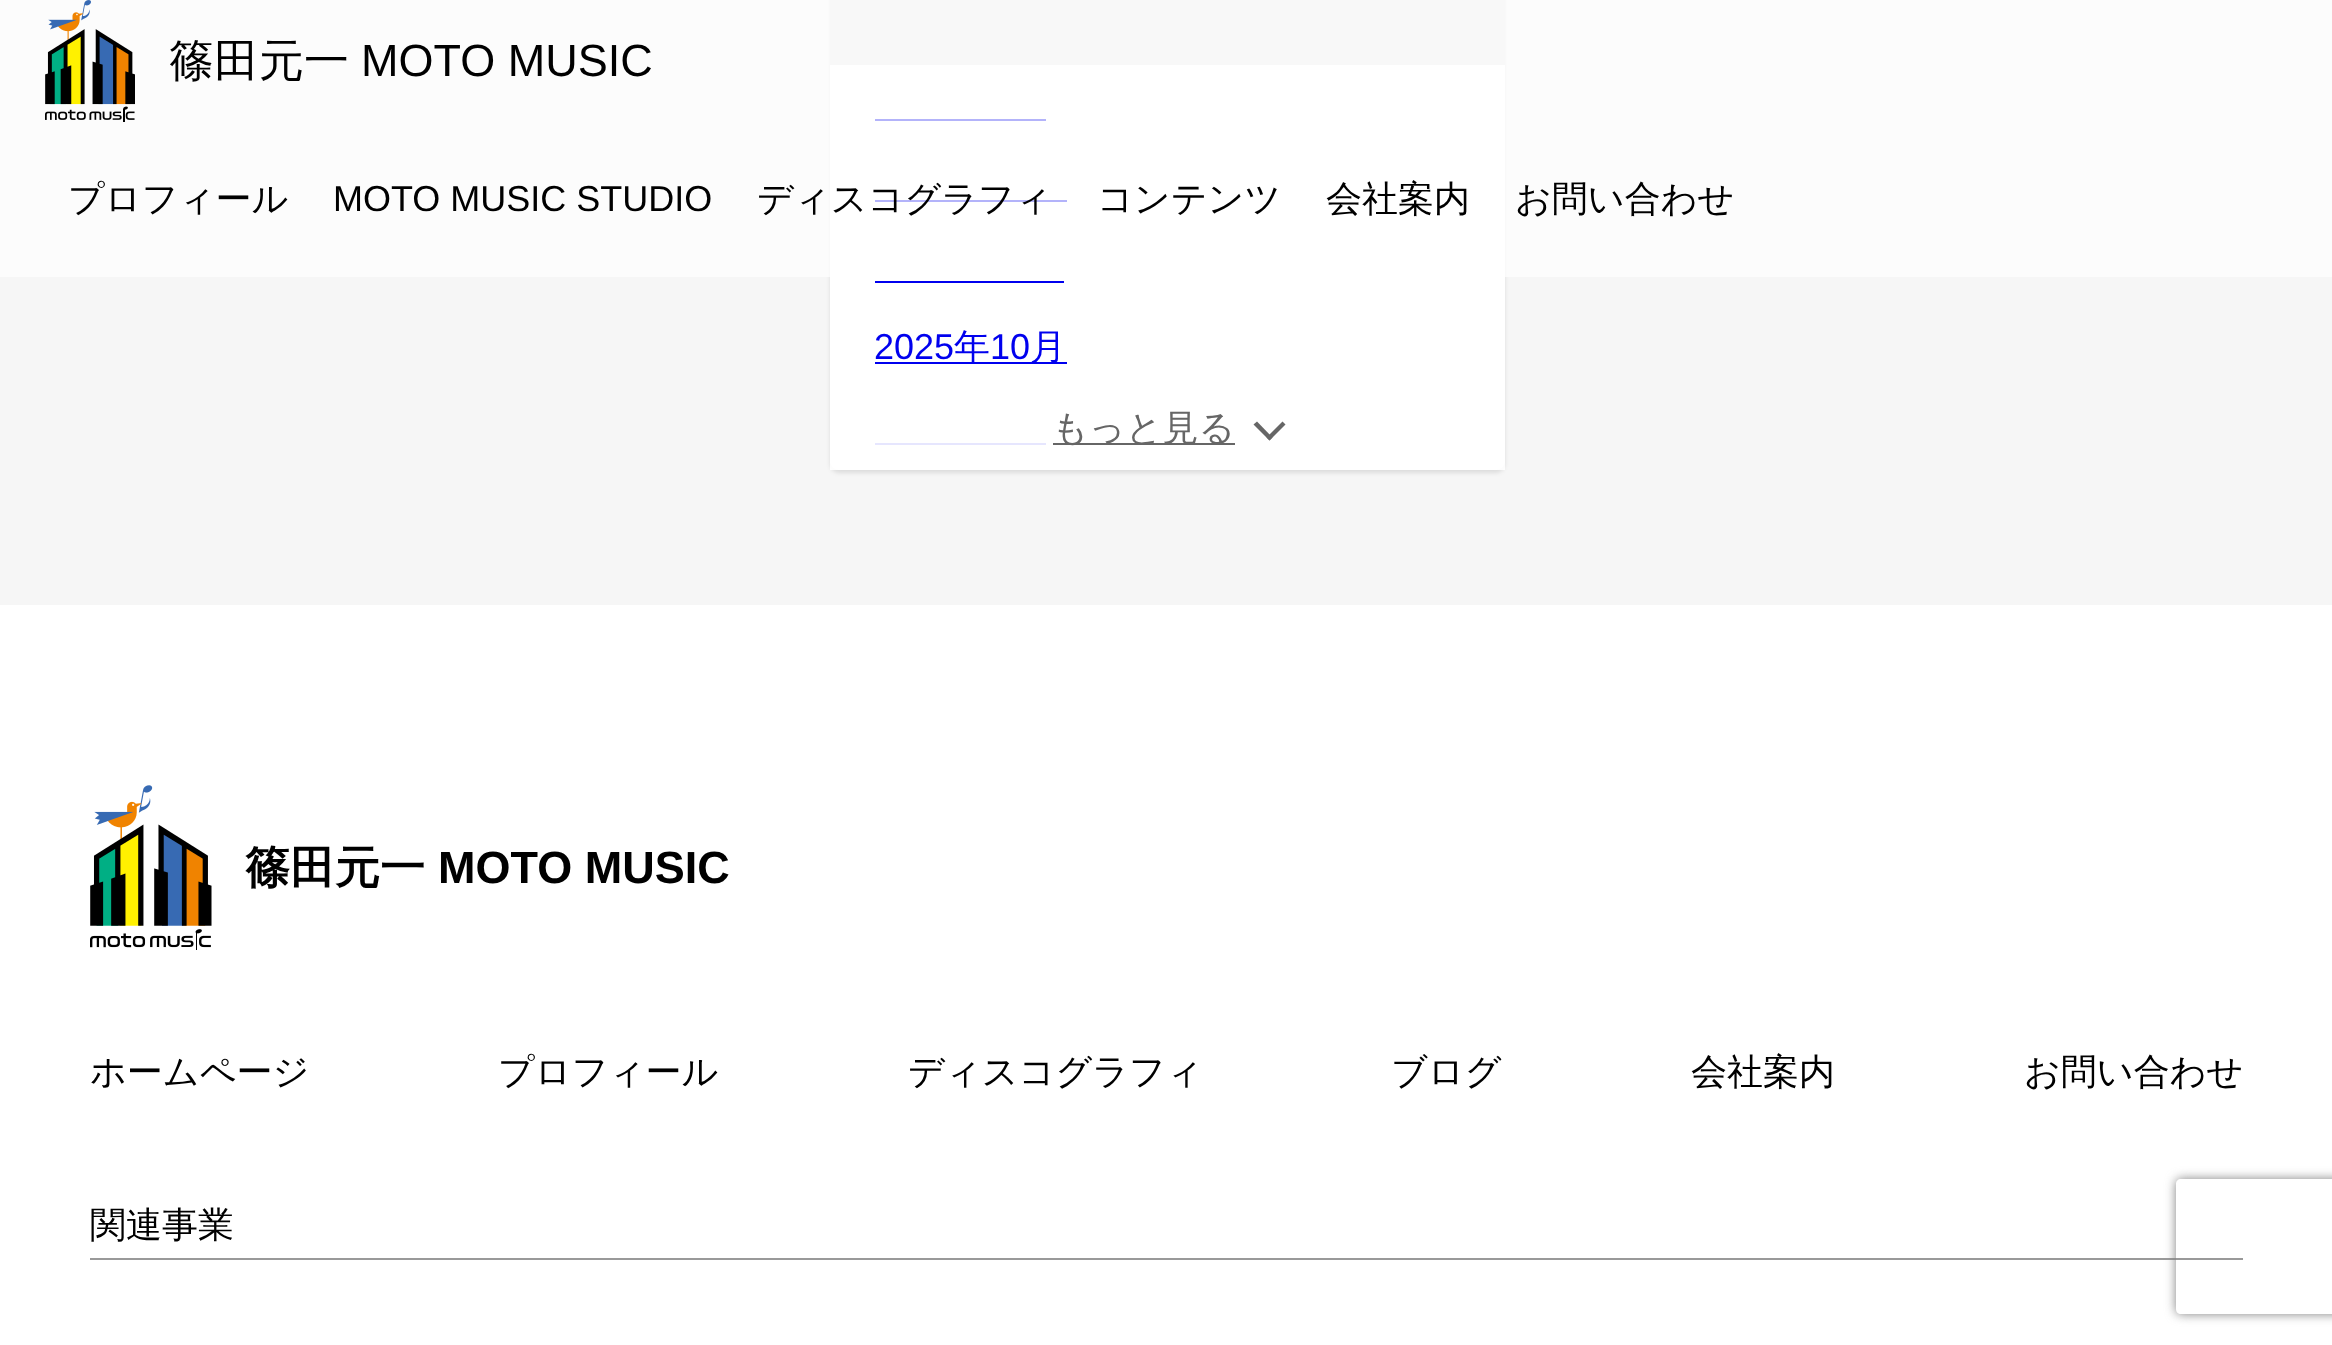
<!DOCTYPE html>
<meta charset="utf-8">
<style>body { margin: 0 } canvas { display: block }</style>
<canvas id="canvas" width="2332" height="1345"></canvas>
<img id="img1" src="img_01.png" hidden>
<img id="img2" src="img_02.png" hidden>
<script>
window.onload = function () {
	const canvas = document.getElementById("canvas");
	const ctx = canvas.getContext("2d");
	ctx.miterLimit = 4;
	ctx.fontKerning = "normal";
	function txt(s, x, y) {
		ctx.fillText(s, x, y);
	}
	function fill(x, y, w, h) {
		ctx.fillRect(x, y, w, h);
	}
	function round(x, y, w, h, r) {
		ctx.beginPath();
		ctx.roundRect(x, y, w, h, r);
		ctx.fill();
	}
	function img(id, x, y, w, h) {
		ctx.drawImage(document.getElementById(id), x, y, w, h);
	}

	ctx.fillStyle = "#FFFFFF";
	fill(0, 0, 2332, 1345);
	ctx.fillStyle = "#F6F6F6";
	fill(0, 0, 2332, 605);
	ctx.fillStyle = "rgba(0, 0, 0, 0.1)";
	ctx.filter = "blur(2px)";
	ctx.beginPath();
	ctx.roundRect(830, -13, 675, 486, 9);
	ctx.fill();
	ctx.filter = "none";
	ctx.fillStyle = "#FFFFFF";
	round(830, -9, 675, 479, 9);
	ctx.fillStyle = "#E8E8E8";
	fill(830, 0, 675, 65);
	ctx.fillStyle = "#0000EE";
	fill(875, 119, 171, 2);
	fill(875, 200, 192, 2);
	ctx.fillStyle = "rgba(255, 255, 255, 0.7)";
	fill(0, 0, 2332, 277);
	img("img1", 45, 0, 90, 122);
	ctx.fillStyle = "#0000EE";
	fill(875, 281, 189, 2);
	fill(875, 362, 192, 2);
	fill(875, 443, 171, 2);
	ctx.fillStyle = "rgba(255, 255, 255, 0.9)";
	fill(830, 443, 675, 27);
	ctx.fillStyle = "#666666";
	fill(1053, 443, 182, 2);
	ctx.beginPath();
	ctx.moveTo(1282.5, 421.5);
	ctx.lineTo(1285.5, 424.5);
	ctx.lineTo(1269.5, 440.5);
	ctx.lineTo(1266.5, 437.5);
	ctx.closePath();
	ctx.fill();
	ctx.beginPath();
	ctx.moveTo(1257, 421.5);
	ctx.lineTo(1272.5, 437.5);
	ctx.lineTo(1269.5, 440.5);
	ctx.lineTo(1253.5, 424.5);
	ctx.closePath();
	ctx.fill();
	img("img2", 90, 785, 122, 165);
	ctx.fillStyle = "#999999";
	fill(90, 1258, 2153, 2);
	ctx.save();
	ctx.beginPath();
	ctx.moveTo(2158, 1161);
	ctx.lineTo(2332, 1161);
	ctx.lineTo(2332, 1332);
	ctx.lineTo(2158, 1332);
	ctx.closePath();
	ctx.moveTo(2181, 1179);
	ctx.lineTo(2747, 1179);
	ctx.bezierCurveTo(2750, 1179, 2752, 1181, 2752, 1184);
	ctx.lineTo(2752, 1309);
	ctx.bezierCurveTo(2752, 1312, 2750, 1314, 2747, 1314);
	ctx.lineTo(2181, 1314);
	ctx.bezierCurveTo(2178, 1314, 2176, 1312, 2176, 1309);
	ctx.lineTo(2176, 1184);
	ctx.bezierCurveTo(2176, 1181, 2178, 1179, 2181, 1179);
	ctx.closePath();
	ctx.clip("evenodd");
	ctx.fillStyle = "#808080";
	ctx.filter = "blur(5.5px)";
	ctx.beginPath();
	ctx.roundRect(2176, 1179, 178, 135, 5);
	ctx.fill();
	ctx.filter = "none";
	ctx.restore();
	ctx.font = "500 45px WenQuanYi Zen Hei";
	ctx.fillStyle = "#000000";
	txt("篠田元一", 169, 76);
	ctx.font = "45px Liberation Sans";
	txt("MOTO MUSIC", 361, 76);
	ctx.font = "500 36px WenQuanYi Zen Hei";
	txt("プロフィール", 68, 211);
	ctx.font = "36px Liberation Sans";
	txt("MOTO MUSIC STUDIO", 333, 211);
	ctx.font = "500 36px WenQuanYi Zen Hei";
	txt("ディスコグラフィ", 757, 211);
	txt("コンテンツ", 1097, 211);
	txt("会社案内", 1326, 211);
	txt("お問い合わせ", 1515, 211);
	ctx.font = "36px Liberation Sans";
	ctx.fillStyle = "#0000EE";
	txt("2025", 874, 359);
	ctx.font = "500 36px WenQuanYi Zen Hei";
	txt("年", 954, 359);
	ctx.font = "36px Liberation Sans";
	txt("10", 990, 359);
	ctx.font = "500 36px WenQuanYi Zen Hei";
	txt("月", 1030, 359);
	ctx.fillStyle = "#666666";
	txt("もっと見る", 1052, 440);
	ctx.font = "bold 45px WenQuanYi Zen Hei";
	ctx.fillStyle = "#000000";
	txt("篠田元一", 245, 883);
	ctx.font = "bold 45px Liberation Sans";
	txt("MOTO MUSIC", 438, 883);
	ctx.font = "500 36px WenQuanYi Zen Hei";
	txt("ホームページ", 90, 1084);
	txt("プロフィール", 498, 1084);
	txt("ディスコグラフィ", 908, 1084);
	txt("ブログ", 1391, 1084);
	txt("会社案内", 1691, 1084);
	txt("お問い合わせ", 2024, 1084);
	txt("関連事業", 90, 1237);
};
</script>
